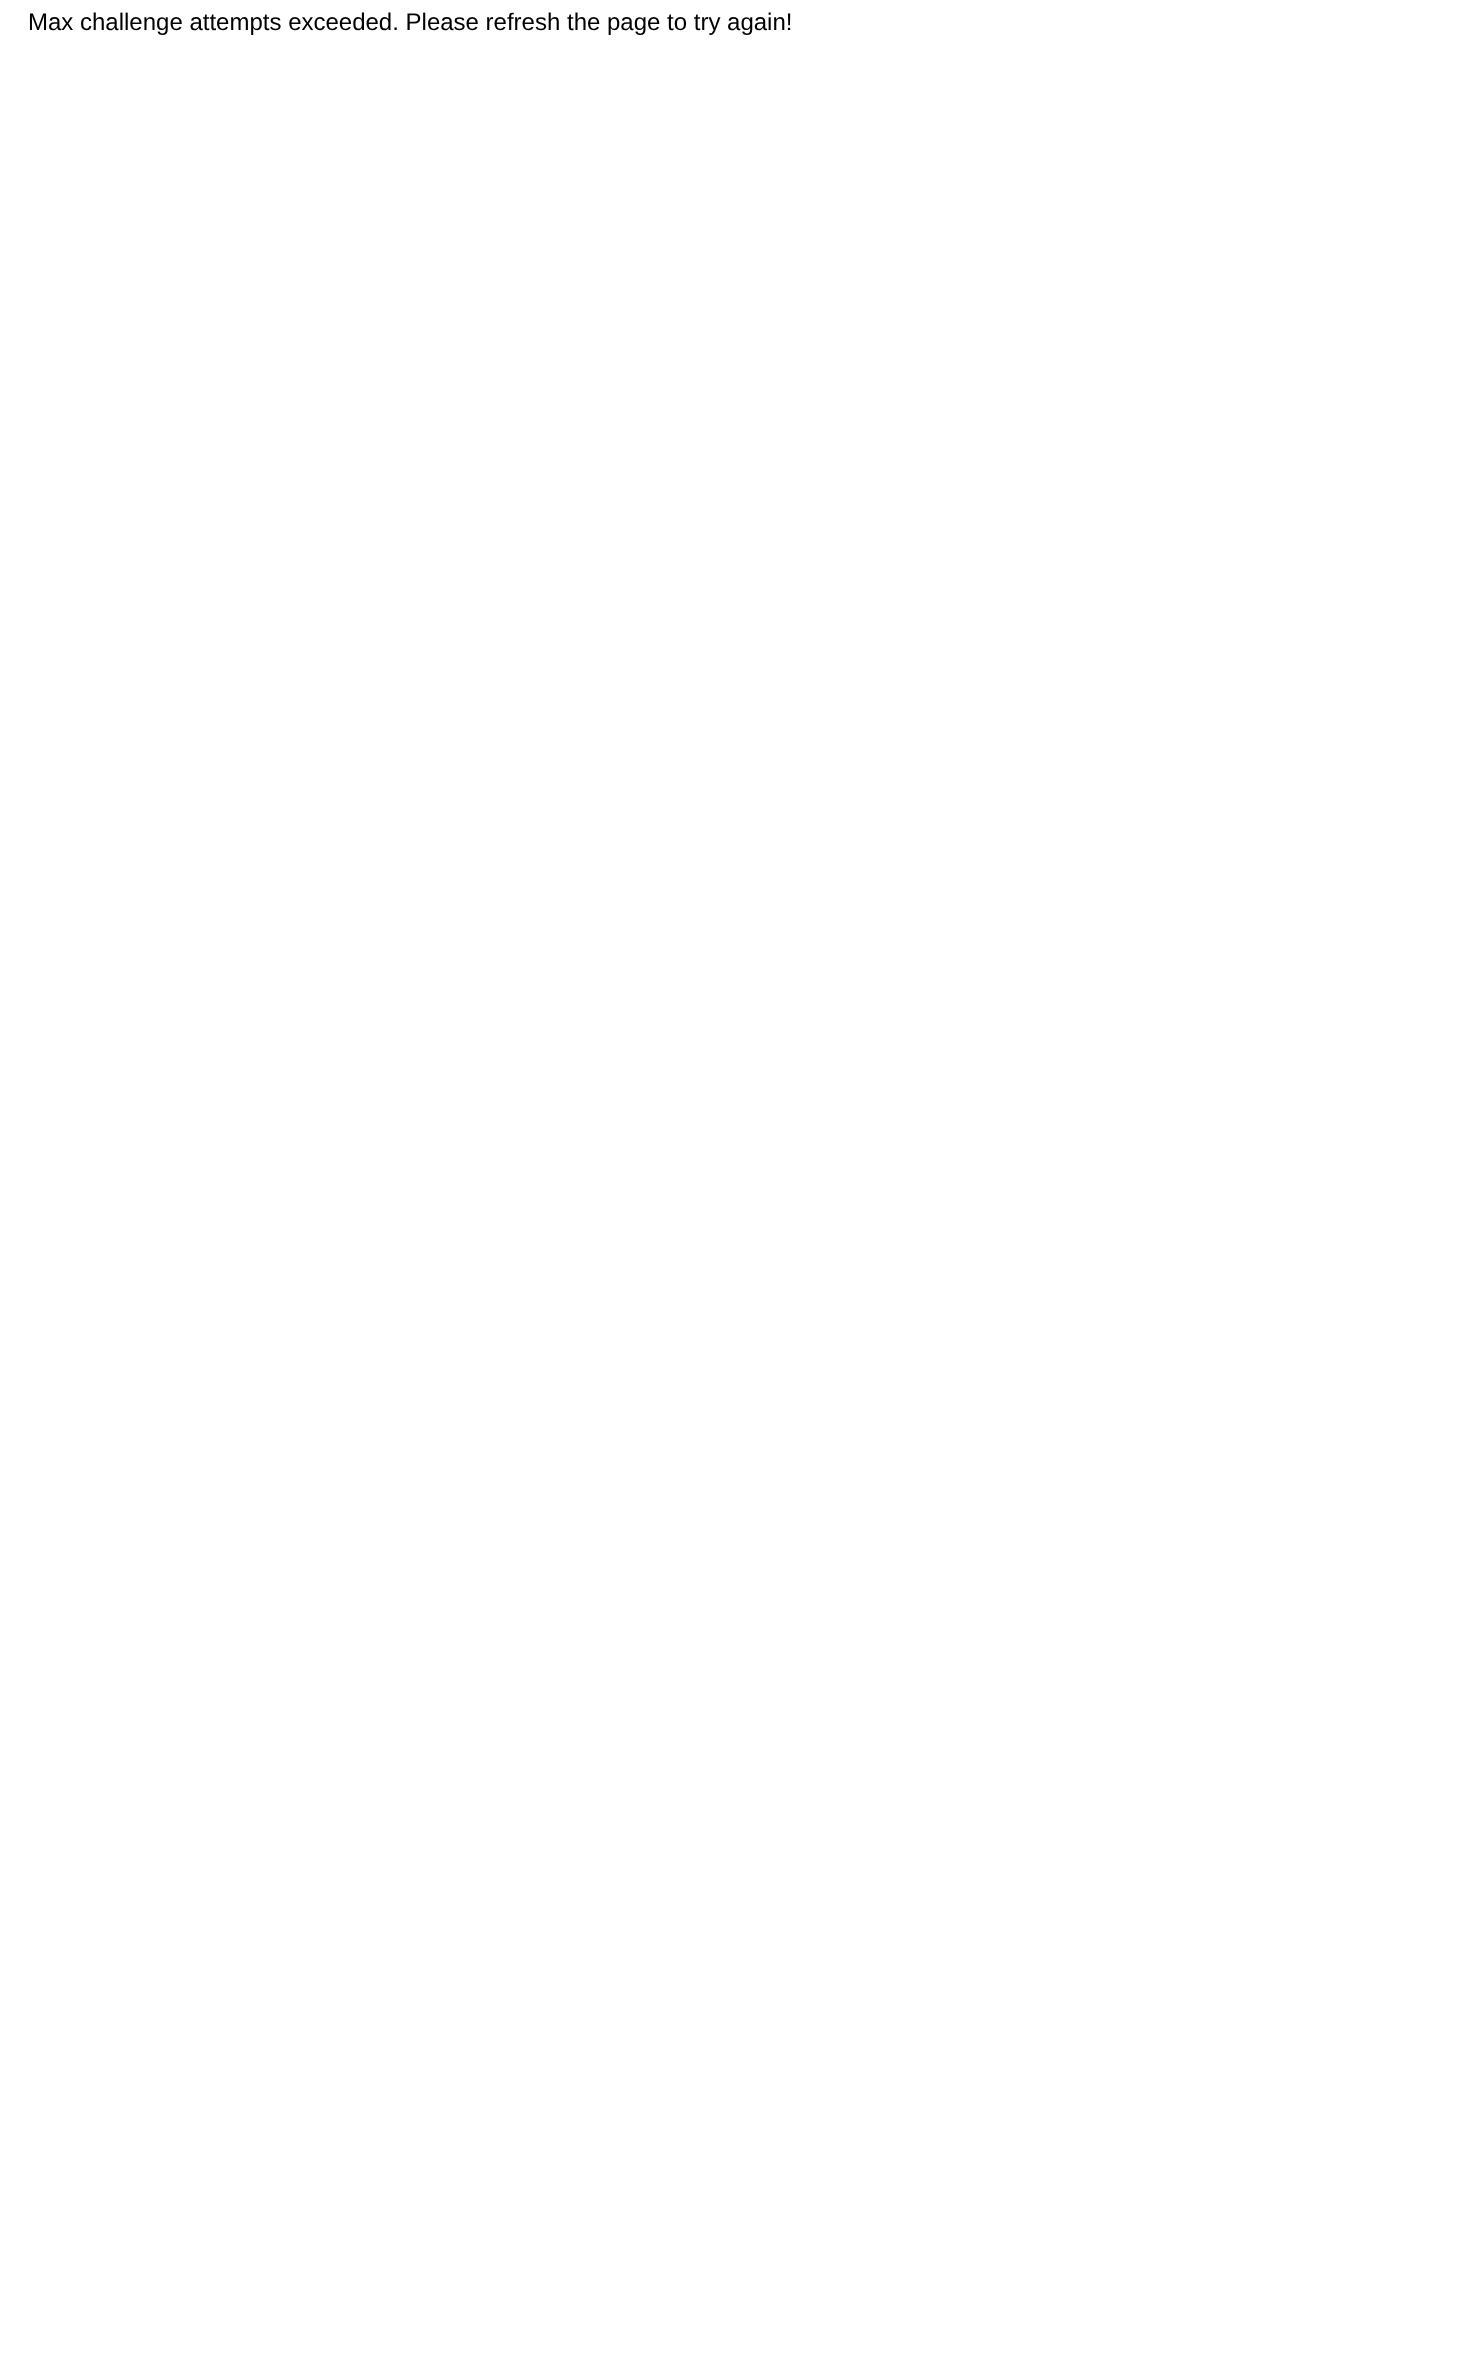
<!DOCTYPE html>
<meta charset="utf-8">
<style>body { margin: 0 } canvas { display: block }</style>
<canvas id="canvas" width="1480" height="2358"></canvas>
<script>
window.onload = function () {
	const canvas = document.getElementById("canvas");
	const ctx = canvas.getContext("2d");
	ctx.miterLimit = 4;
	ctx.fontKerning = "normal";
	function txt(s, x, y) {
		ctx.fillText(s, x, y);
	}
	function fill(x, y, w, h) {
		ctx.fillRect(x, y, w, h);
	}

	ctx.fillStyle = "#FFFFFF";
	fill(0, 0, 1480, 2358);
	ctx.font = "24px Liberation Sans";
	ctx.fillStyle = "#000000";
	txt("Max challenge attempts exceeded. Please refresh the page to try again!", 28, 30);
};
</script>
